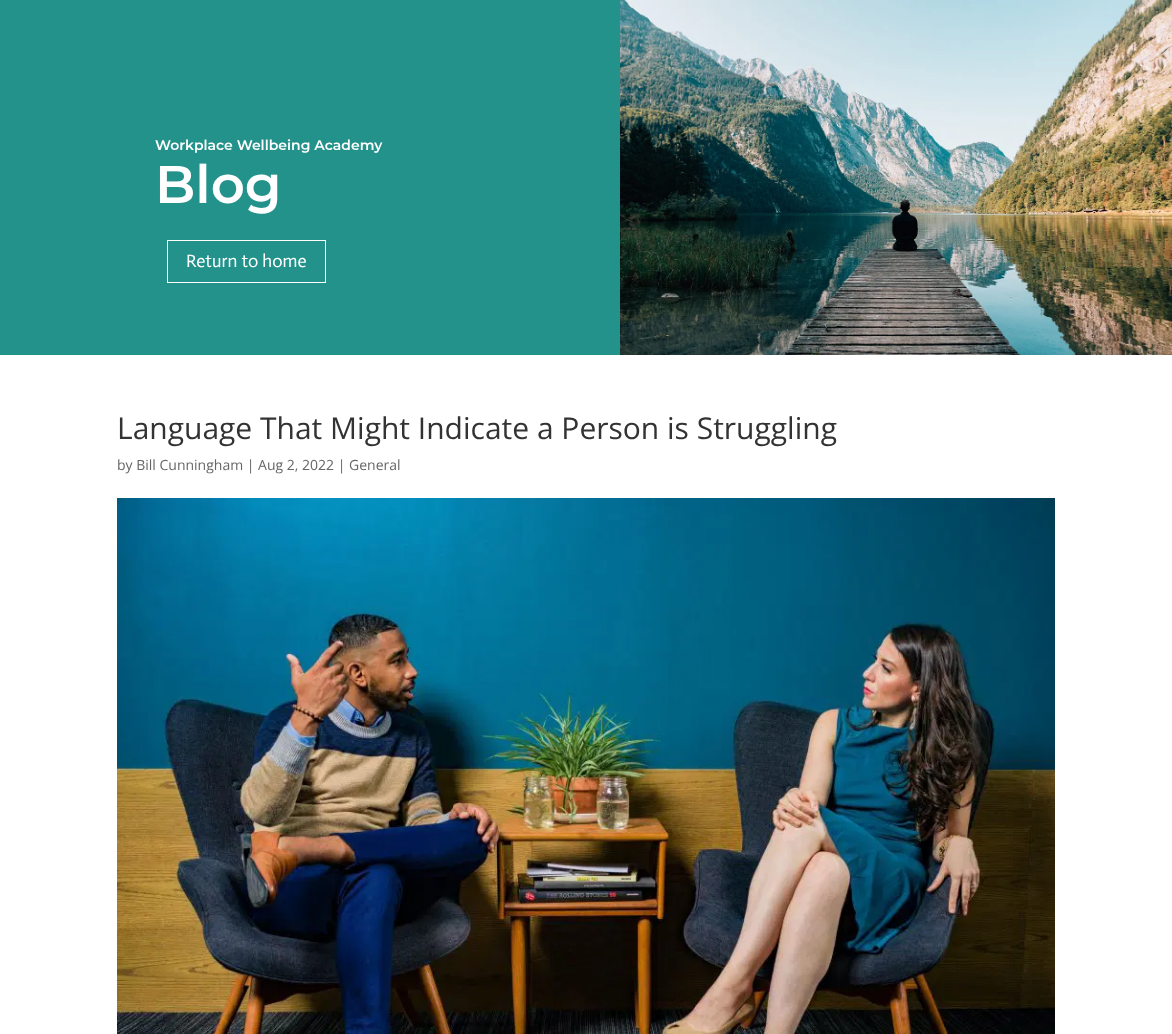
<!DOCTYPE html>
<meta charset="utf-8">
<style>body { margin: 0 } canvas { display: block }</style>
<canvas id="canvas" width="1172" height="1034"></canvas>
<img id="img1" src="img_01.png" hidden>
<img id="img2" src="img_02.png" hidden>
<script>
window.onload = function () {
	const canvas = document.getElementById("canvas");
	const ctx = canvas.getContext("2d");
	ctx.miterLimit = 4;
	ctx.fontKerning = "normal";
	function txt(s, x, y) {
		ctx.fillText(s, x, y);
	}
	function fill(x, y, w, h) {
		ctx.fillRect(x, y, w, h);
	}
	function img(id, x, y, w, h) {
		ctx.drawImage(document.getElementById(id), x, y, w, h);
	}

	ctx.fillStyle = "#FFFFFF";
	fill(0, 0, 1172, 1034);
	ctx.fillStyle = "#23928B";
	fill(0, 0, 620, 355);
	ctx.strokeStyle = "#FFFFFF";
	ctx.strokeRect(167.5, 240.5, 158, 42);
	img("img1", 620, 0, 552, 355);
	img("img2", 117, 498, 938, 536);
	ctx.font = "100 14px Montserrat";
	ctx.fillStyle = "#FFFFFF";
	txt("Workplace Wellbeing Academy", 155, 150);
	ctx.font = "100 53px Montserrat";
	txt("Blog", 155, 203);
	ctx.font = "18px Actor";
	txt("Return to home", 186, 267);
	ctx.font = "30px Open Sans";
	ctx.fillStyle = "#333333";
	txt("Language That Might Indicate a Person is Struggling", 117, 439);
	ctx.font = "14px Open Sans";
	ctx.fillStyle = "#666666";
	txt("by Bill Cunningham | Aug 2, 2022 | General", 117, 470);
};
</script>
